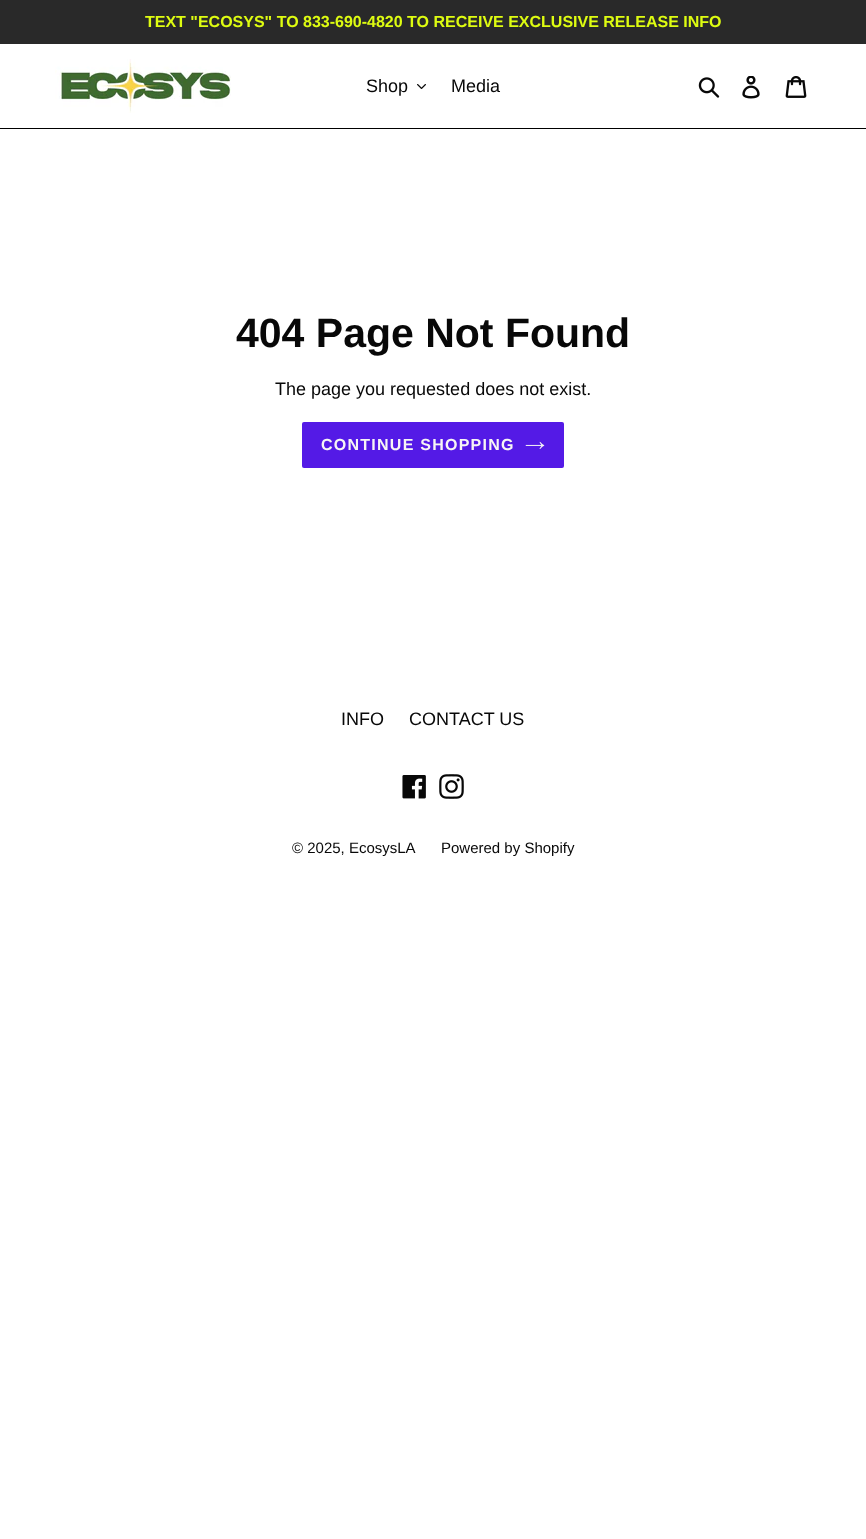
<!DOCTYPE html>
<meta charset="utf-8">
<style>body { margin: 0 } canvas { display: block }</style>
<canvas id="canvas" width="866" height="1539"></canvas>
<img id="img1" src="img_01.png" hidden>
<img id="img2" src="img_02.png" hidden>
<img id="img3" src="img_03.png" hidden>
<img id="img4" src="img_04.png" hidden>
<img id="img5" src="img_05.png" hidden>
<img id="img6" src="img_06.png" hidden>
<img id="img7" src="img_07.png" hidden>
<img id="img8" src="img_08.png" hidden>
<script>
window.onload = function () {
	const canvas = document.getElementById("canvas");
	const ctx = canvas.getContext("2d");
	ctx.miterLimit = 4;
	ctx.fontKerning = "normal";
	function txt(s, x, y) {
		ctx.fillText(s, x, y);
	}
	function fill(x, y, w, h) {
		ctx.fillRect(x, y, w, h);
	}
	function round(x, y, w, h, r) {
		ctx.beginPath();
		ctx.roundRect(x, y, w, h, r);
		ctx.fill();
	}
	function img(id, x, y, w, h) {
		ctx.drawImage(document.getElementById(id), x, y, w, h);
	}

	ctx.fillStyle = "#FFFFFF";
	fill(0, 0, 866, 1539);
	ctx.fillStyle = "#292929";
	fill(0, 0, 866, 44);
	ctx.fillStyle = "#000000";
	fill(0, 128, 866, 1);
	img("img1", 55, 59, 176, 54);
	img("img2", 417, 84, 9, 5);
	img("img3", 698, 77, 22, 21);
	img("img4", 742, 76, 18, 23);
	img("img5", 785, 76, 22, 22);
	ctx.fillStyle = "#541AE6";
	round(302, 422, 262, 46, 2);
	img("img6", 525, 441, 20, 8);
	img("img7", 402, 775, 24, 24);
	img("img8", 439, 774, 25, 25);
	ctx.font = "bold 16px Arimo";
	ctx.fillStyle = "#DEFC11";
	txt("TEXT \"ECOSYS\" TO 833-690-4820 TO RECEIVE EXCLUSIVE RELEASE INFO", 145, 27);
	ctx.font = "18px Arimo";
	ctx.fillStyle = "#080808";
	txt("Shop", 366, 92);
	txt("Media", 451, 92);
	ctx.font = "bold 41px Arimo";
	txt("404 Page Not Found", 236, 347);
	ctx.font = "18px Arimo";
	txt("The page you requested does not exist.", 275, 395);
	ctx.letterSpacing = "1.25px";
	ctx.font = "bold 16px Arimo";
	ctx.fillStyle = "#F7F5F5";
	txt("CONTINUE SHOPPING", 321, 450);
	ctx.letterSpacing = "0px";
	ctx.font = "18px Arimo";
	ctx.fillStyle = "#080808";
	txt("INFO", 341, 725);
	txt("CONTACT US", 409, 725);
	ctx.font = "15px Arimo";
	txt("© 2025, EcosysLA", 292, 853);
	txt("Powered by Shopify", 441, 853);
};
</script>
